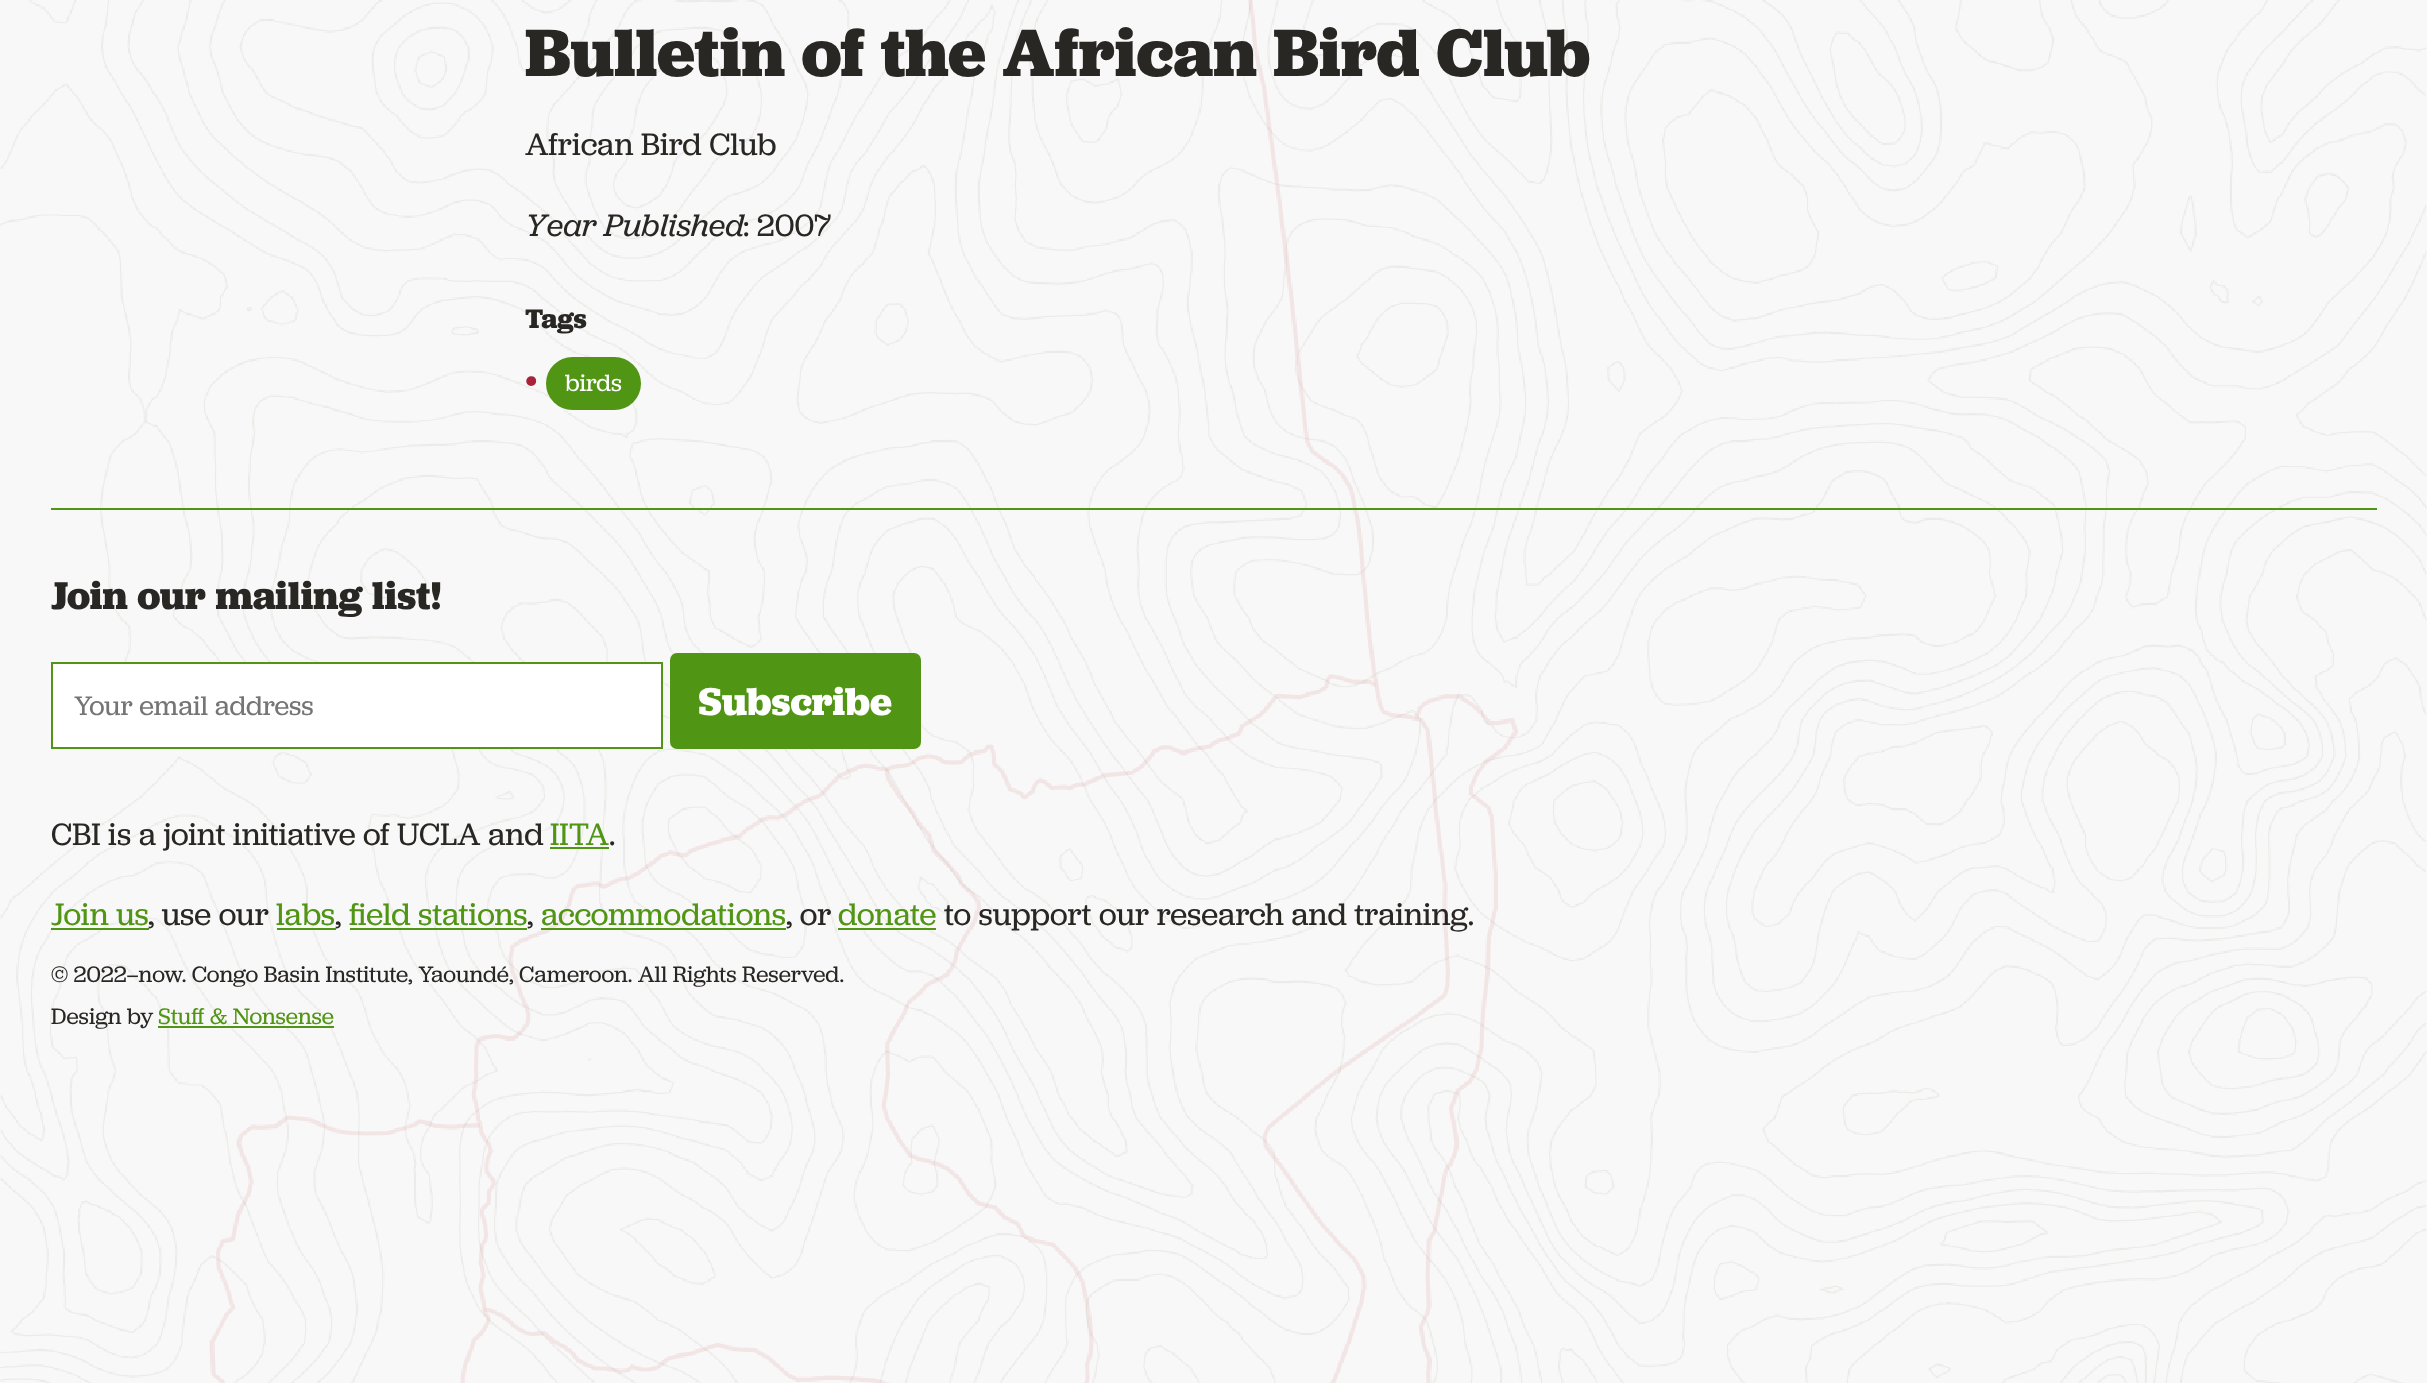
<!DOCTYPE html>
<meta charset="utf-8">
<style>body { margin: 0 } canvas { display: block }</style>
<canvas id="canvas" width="2427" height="1383"></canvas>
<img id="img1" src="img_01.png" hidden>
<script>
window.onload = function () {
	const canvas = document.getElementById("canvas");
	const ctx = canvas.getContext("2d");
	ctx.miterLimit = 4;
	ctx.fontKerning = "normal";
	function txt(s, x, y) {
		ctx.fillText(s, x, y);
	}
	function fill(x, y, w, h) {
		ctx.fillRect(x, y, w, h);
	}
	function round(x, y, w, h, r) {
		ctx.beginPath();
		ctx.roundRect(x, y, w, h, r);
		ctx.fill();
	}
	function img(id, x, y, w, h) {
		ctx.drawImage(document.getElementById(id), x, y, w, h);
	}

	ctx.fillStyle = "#F9F8F8";
	fill(0, 0, 2427, 1383);
	img("img1", 0, 0, 2427, 1383);
	ctx.fillStyle = "#519514";
	round(546, 357, 95, 53, 26.5);
	fill(51, 508, 2326, 2);
	ctx.fillStyle = "#FFFFFF";
	ctx.beginPath();
	ctx.rect(52, 663, 610, 85);
	ctx.fill();
	ctx.strokeStyle = "#519514";
	ctx.lineWidth = 2;
	ctx.stroke();
	ctx.fillStyle = "#519514";
	round(670, 653, 251, 96, 7);
	fill(550, 847, 59, 2);
	fill(51, 928, 98, 2);
	fill(277, 928, 59, 2);
	fill(350, 928, 177, 2);
	fill(541, 928, 245, 2);
	fill(838, 928, 98, 2);
	fill(158, 1026, 176, 2);
	ctx.font = "bold 69.7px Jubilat";
	ctx.fillStyle = "#292724";
	txt("Bulletin of the African Bird Club", 525, 76);
	ctx.font = "32.25px Jubilat";
	txt("African Bird Club", 525, 155);
	ctx.font = "italic 32.25px Jubilat";
	txt("Year Published", 525, 236);
	ctx.font = "32.25px Jubilat";
	txt(": 2007", 743, 236);
	ctx.font = "bold 28px Jubilat";
	txt("Tags", 525, 328);
	ctx.font = "40.25px Jubilat";
	ctx.fillStyle = "#A62339";
	txt("•", 525, 391);
	ctx.font = "24.5px Jubilat";
	ctx.fillStyle = "#FFFFFF";
	txt("birds", 565, 391);
	ctx.font = "bold 40.25px Jubilat";
	ctx.fillStyle = "#292724";
	txt("Join our mailing list!", 51, 609);
	ctx.font = "28px Jubilat";
	ctx.fillStyle = "#757575";
	txt("Your email address", 74, 715);
	ctx.font = "bold 40.25px Jubilat";
	ctx.fillStyle = "#FFFFFF";
	txt("Subscribe", 698, 715);
	ctx.font = "32.25px Jubilat";
	ctx.fillStyle = "#292724";
	txt("CBI is a joint initiative of UCLA and", 51, 845);
	ctx.fillStyle = "#519514";
	txt("IITA", 550, 845);
	ctx.fillStyle = "#292724";
	txt(".", 609, 845);
	ctx.fillStyle = "#519514";
	txt("Join us", 51, 925);
	ctx.fillStyle = "#292724";
	txt(", use our", 148, 925);
	ctx.fillStyle = "#519514";
	txt("labs", 276, 925);
	ctx.fillStyle = "#292724";
	txt(",", 335, 925);
	ctx.fillStyle = "#519514";
	txt("field stations", 349, 925);
	ctx.fillStyle = "#292724";
	txt(",", 527, 925);
	ctx.fillStyle = "#519514";
	txt("accommodations", 541, 925);
	ctx.fillStyle = "#292724";
	txt(", or", 786, 925);
	ctx.fillStyle = "#519514";
	txt("donate", 838, 925);
	ctx.fillStyle = "#292724";
	txt("to support our research and training.", 944, 925);
	ctx.font = "23.3px Jubilat";
	txt("© 2022–now. Congo Basin Institute, Yaoundé, Cameroon. All Rights Reserved.", 51, 982);
	txt("Design by", 51, 1024);
	ctx.fillStyle = "#519514";
	txt("Stuff & Nonsense", 158, 1024);
};
</script>
